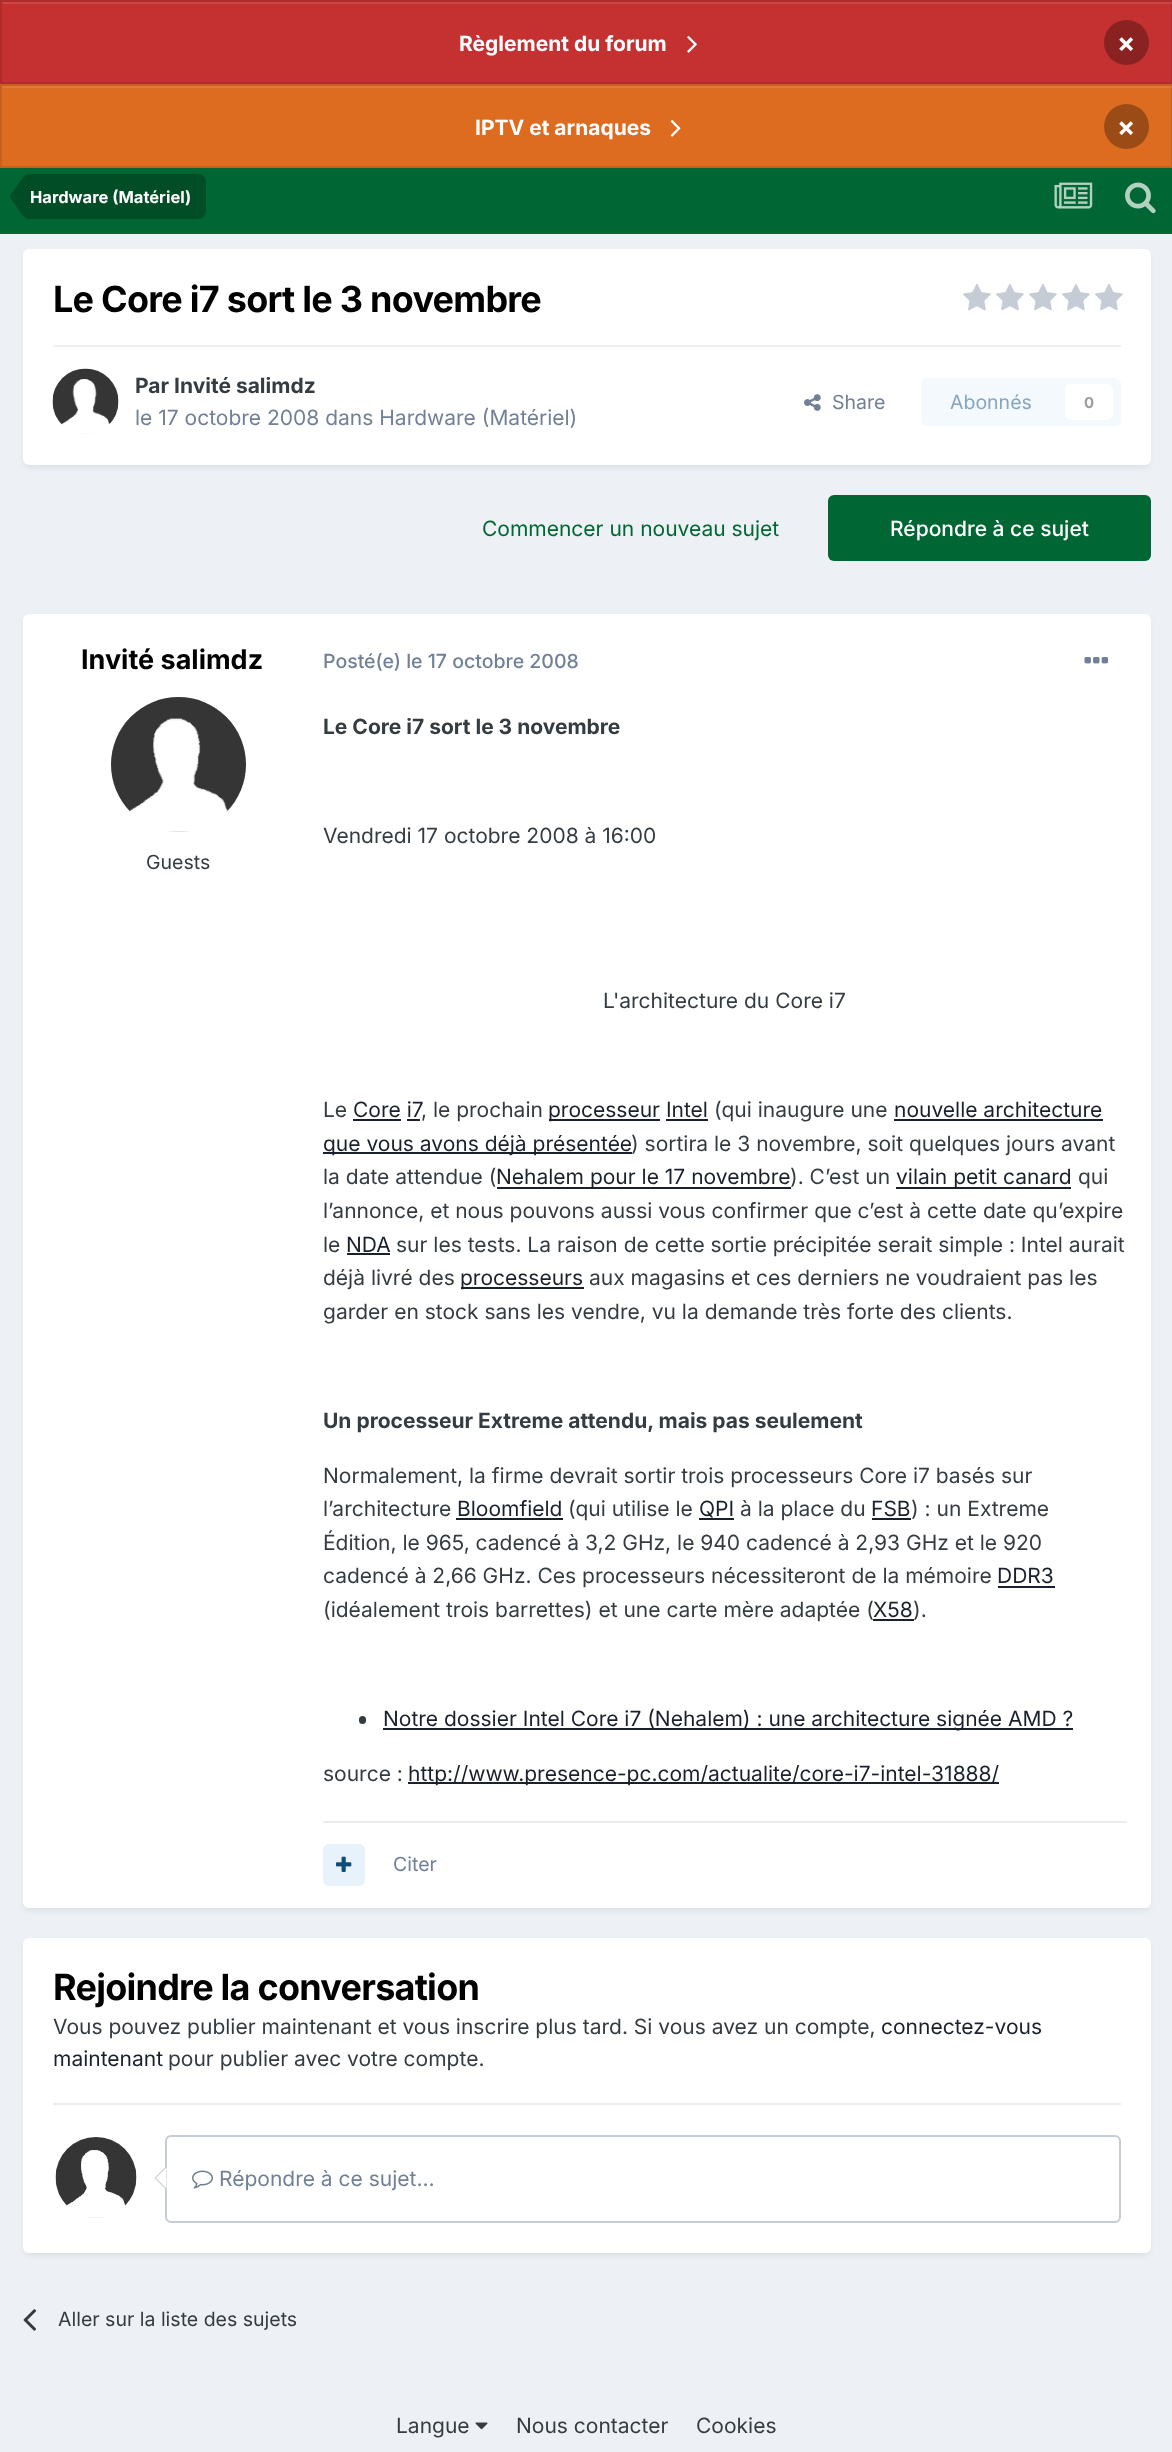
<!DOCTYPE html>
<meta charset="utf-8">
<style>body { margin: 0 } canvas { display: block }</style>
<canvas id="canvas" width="1172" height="2452"></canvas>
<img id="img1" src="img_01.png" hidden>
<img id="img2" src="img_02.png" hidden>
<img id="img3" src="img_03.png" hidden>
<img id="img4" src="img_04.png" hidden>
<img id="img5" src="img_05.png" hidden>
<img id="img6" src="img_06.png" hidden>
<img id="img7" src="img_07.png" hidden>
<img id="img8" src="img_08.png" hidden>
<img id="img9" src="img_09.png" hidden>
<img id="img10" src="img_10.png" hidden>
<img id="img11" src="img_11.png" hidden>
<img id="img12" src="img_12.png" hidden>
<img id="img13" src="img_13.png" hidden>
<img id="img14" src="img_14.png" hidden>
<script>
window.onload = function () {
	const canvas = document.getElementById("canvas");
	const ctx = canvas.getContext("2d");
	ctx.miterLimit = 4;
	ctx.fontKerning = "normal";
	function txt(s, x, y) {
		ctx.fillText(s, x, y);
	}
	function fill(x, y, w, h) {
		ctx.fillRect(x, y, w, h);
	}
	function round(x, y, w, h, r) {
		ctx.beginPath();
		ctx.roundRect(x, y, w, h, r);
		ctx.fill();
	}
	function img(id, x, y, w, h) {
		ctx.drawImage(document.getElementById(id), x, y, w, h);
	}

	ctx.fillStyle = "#EDF0F4";
	fill(0, 0, 1172, 2452);
	ctx.fillStyle = "#C53030";
	fill(0, 0, 1172, 84);
	ctx.fillStyle = "#CB4545";
	fill(2, 2, 1170, 2);
	ctx.strokeStyle = "rgba(0, 0, 0, 0.1)";
	ctx.lineWidth = 2;
	ctx.strokeRect(1, 1, 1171, 82);
	img("img1", 687, 36, 10, 17);
	ctx.fillStyle = "#8A2222";
	ctx.beginPath();
	ctx.arc(1126.5, 42.5, 22.5, 0, Math.PI * 2);
	ctx.fill();
	ctx.fillStyle = "#DD6B20";
	fill(0, 84, 1172, 84);
	ctx.fillStyle = "#E07A36";
	fill(2, 86, 1170, 2);
	ctx.strokeRect(1, 85, 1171, 82);
	img("img2", 670, 120, 11, 17);
	ctx.fillStyle = "#9B4B16";
	ctx.beginPath();
	ctx.arc(1126.5, 126.5, 22.5, 0, Math.PI * 2);
	ctx.fill();
	ctx.fillStyle = "#006633";
	fill(0, 168, 1172, 66);
	ctx.fillStyle = "#004D26";
	ctx.beginPath();
	ctx.roundRect(30, 174, 176, 45, [0, 8, 8, 0]);
	ctx.fill();
	ctx.beginPath();
	ctx.moveTo(10.5, 198);
	ctx.lineTo(10, 196.5);
	ctx.lineTo(30, 196.5);
	ctx.lineTo(30, 219);
	ctx.bezierCurveTo(27, 219, 23.5, 217, 21, 213);
	ctx.closePath();
	ctx.fill();
	ctx.fillStyle = "rgba(0, 0, 0, 0.25)";
	ctx.beginPath();
	ctx.moveTo(30, 174);
	ctx.lineTo(30, 196.5);
	ctx.lineTo(10, 196.5);
	ctx.lineTo(10.5, 195);
	ctx.lineTo(21, 180);
	ctx.bezierCurveTo(23.5, 176, 27, 174, 30, 174);
	ctx.closePath();
	ctx.fill();
	img("img3", 1054, 182, 39, 27);
	img("img4", 1125, 182, 31, 32);
	ctx.fillStyle = "rgba(45, 55, 72, 0.1)";
	ctx.filter = "blur(3px)";
	ctx.beginPath();
	ctx.roundRect(24, 254, 1125, 213, 5);
	ctx.fill();
	ctx.filter = "none";
	ctx.fillStyle = "#FFFFFF";
	round(23, 249, 1128, 216, 6);
	img("img5", 963, 284, 28, 27);
	img("img5", 996, 284, 28, 27);
	img("img5", 1029, 284, 28, 27);
	img("img5", 1062, 284, 28, 27);
	img("img5", 1095, 284, 28, 27);
	ctx.fillStyle = "#EFEFF0";
	fill(53, 345, 1068, 2);
	img("img6", 52, 368, 67, 66);
	img("img7", 804, 394, 17, 17);
	ctx.fillStyle = "#F4F9FD";
	round(921, 378, 200, 48, 6);
	ctx.fillStyle = "#FFFFFF";
	round(1065, 384, 48, 36, 6);
	ctx.fillStyle = "#006633";
	round(828, 495, 323, 66, 6);
	ctx.fillStyle = "rgba(45, 55, 72, 0.1)";
	ctx.filter = "blur(3px)";
	ctx.beginPath();
	ctx.roundRect(24, 618, 1125, 1292, 5);
	ctx.fill();
	ctx.filter = "none";
	ctx.fillStyle = "#FFFFFF";
	round(23, 614, 1128, 1294, 6);
	img("img8", 111, 697, 135, 135);
	img("img9", 1084, 657, 25, 7);
	ctx.fillStyle = "#1A202C";
	fill(353, 1119, 48, 2);
	fill(549, 1119, 111, 2);
	fill(894, 1119, 209, 2);
	fill(407, 1119, 13, 2);
	fill(666, 1119, 42, 2);
	fill(323, 1152, 309, 2);
	fill(497, 1187, 294, 2);
	fill(896, 1187, 175, 2);
	fill(347, 1253, 43, 2);
	fill(461, 1287, 123, 2);
	fill(456, 1518, 107, 2);
	fill(699, 1518, 35, 2);
	fill(872, 1518, 39, 2);
	fill(998, 1586, 57, 2);
	fill(873, 1619, 41, 2);
	ctx.fillStyle = "#353C41";
	round(359, 1716, 7, 8, 3.5);
	ctx.fillStyle = "#1A202C";
	fill(383, 1728, 690, 2);
	fill(408, 1782, 591, 2);
	ctx.fillStyle = "#EBECEC";
	fill(323, 1821, 804, 2);
	ctx.fillStyle = "#E8F2FA";
	round(323, 1844, 42, 42, 6);
	img("img10", 336, 1856, 16, 16);
	ctx.fillStyle = "rgba(45, 55, 72, 0.1)";
	ctx.filter = "blur(3px)";
	ctx.beginPath();
	ctx.roundRect(24, 1943, 1125, 312, 5);
	ctx.fill();
	ctx.filter = "none";
	ctx.fillStyle = "#FFFFFF";
	round(23, 1938, 1128, 315, 6);
	ctx.fillStyle = "#EAECEF";
	fill(53, 2103, 1068, 2);
	img("img11", 55, 2137, 82, 81);
	ctx.beginPath();
	ctx.roundRect(166, 2136, 954, 86, 5);
	ctx.strokeStyle = "#C6CCD5";
	ctx.stroke();
	ctx.fillStyle = "#C6CCD5";
	ctx.beginPath();
	ctx.moveTo(165, 2167.5);
	ctx.lineTo(165, 2188.5);
	ctx.lineTo(154.5, 2178);
	ctx.closePath();
	ctx.fill();
	ctx.fillStyle = "#FFFFFF";
	ctx.beginPath();
	ctx.moveTo(166.5, 2167.5);
	ctx.lineTo(166.5, 2188.5);
	ctx.lineTo(156, 2178);
	ctx.closePath();
	ctx.fill();
	img("img12", 192, 2170, 21, 19);
	img("img13", 23, 2309, 14, 22);
	img("img14", 475, 2422, 13, 8);
	ctx.font = "bold 21px Inter";
	txt("Règlement du forum", 459, 51);
	ctx.font = "bold 27px Inter";
	txt("×", 1117, 52);
	ctx.font = "bold 21px Inter";
	txt("IPTV et arnaques", 475, 135);
	ctx.font = "bold 27px Inter";
	txt("×", 1117, 136);
	ctx.font = "bold 16.5px Inter";
	txt("Hardware (Matériel)", 30, 203);
	ctx.letterSpacing = "-0.75px";
	ctx.font = "bold 36px Inter";
	ctx.fillStyle = "#000000";
	txt("Le Core i7 sort le 3 novembre", 53, 312);
	ctx.letterSpacing = "0px";
	ctx.font = "bold 21px Inter";
	ctx.fillStyle = "#353C41";
	txt("Par Invité salimdz", 135, 393);
	ctx.font = "21px Inter";
	ctx.fillStyle = "#718096";
	txt("le 17 octobre 2008 dans Hardware (Matériel)", 135, 425);
	ctx.font = "19.5px Inter";
	txt("Share", 832, 409);
	ctx.fillStyle = "#87A6BC";
	txt("Abonnés", 950, 409);
	ctx.font = "bold 15px Inter";
	ctx.fillStyle = "#9A9EA0";
	txt("0", 1084, 408);
	ctx.font = "21px Inter";
	ctx.fillStyle = "#006633";
	txt("Commencer un nouveau sujet", 482, 536);
	ctx.font = "500 21px Inter";
	ctx.fillStyle = "#FFFFFF";
	txt("Répondre à ce sujet", 890, 536);
	ctx.font = "bold 27px Inter";
	ctx.fillStyle = "#000000";
	txt("Invité salimdz", 81, 669);
	ctx.font = "19.5px Inter";
	ctx.fillStyle = "#353C41";
	txt("Guests", 146, 869);
	ctx.font = "500 19.5px Inter";
	ctx.fillStyle = "#718096";
	txt("Posté(e) le 17 octobre 2008", 323, 668);
	ctx.font = "bold 21px Inter";
	ctx.fillStyle = "#353C41";
	txt("Le Core i7 sort le 3 novembre", 323, 734);
	ctx.font = "21px Inter";
	txt("Vendredi 17 octobre 2008 à 16:00", 323, 843);
	txt("L'architecture du Core i7", 603, 1008);
	txt("Le", 323, 1117);
	ctx.fillStyle = "#1A202C";
	txt("Core i7", 353, 1117);
	ctx.fillStyle = "#353C41";
	txt(", le prochain", 421, 1117);
	ctx.fillStyle = "#1A202C";
	txt("processeur Intel", 548, 1117);
	ctx.fillStyle = "#353C41";
	txt("(qui inaugure une", 714, 1117);
	ctx.fillStyle = "#1A202C";
	txt("nouvelle architecture", 894, 1117);
	txt("que vous avons déjà présentée", 323, 1151);
	ctx.fillStyle = "#353C41";
	txt(") sortira le 3 novembre, soit quelques jours avant", 631, 1151);
	txt("la date attendue (", 323, 1184);
	ctx.fillStyle = "#1A202C";
	txt("Nehalem pour le 17 novembre", 496, 1184);
	ctx.fillStyle = "#353C41";
	txt("). C’est un", 790, 1184);
	ctx.fillStyle = "#1A202C";
	txt("vilain petit canard", 896, 1184);
	ctx.fillStyle = "#353C41";
	txt("qui", 1078, 1184);
	txt("l’annonce, et nous pouvons aussi vous confirmer que c’est à cette date qu’expire", 323, 1218);
	txt("le", 323, 1252);
	ctx.fillStyle = "#1A202C";
	txt("NDA", 346, 1252);
	ctx.fillStyle = "#353C41";
	txt("sur les tests. La raison de cette sortie précipitée serait simple : Intel aurait", 396, 1252);
	txt("déjà livré des", 323, 1285);
	ctx.fillStyle = "#1A202C";
	txt("processeurs", 460, 1285);
	ctx.fillStyle = "#353C41";
	txt("aux magasins et ces derniers ne voudraient pas les", 589, 1285);
	txt("garder en stock sans les vendre, vu la demande très forte des clients.", 323, 1319);
	ctx.font = "bold 21px Inter";
	txt("Un processeur Extreme attendu, mais pas seulement", 323, 1428);
	ctx.font = "21px Inter";
	txt("Normalement, la firme devrait sortir trois processeurs Core i7 basés sur", 323, 1483);
	txt("l’architecture", 323, 1516);
	ctx.fillStyle = "#1A202C";
	txt("Bloomfield", 457, 1516);
	ctx.fillStyle = "#353C41";
	txt("(qui utilise le", 568, 1516);
	ctx.fillStyle = "#1A202C";
	txt("QPI", 699, 1516);
	ctx.fillStyle = "#353C41";
	txt("à la place du", 740, 1516);
	ctx.fillStyle = "#1A202C";
	txt("FSB", 871, 1516);
	ctx.fillStyle = "#353C41";
	txt(") : un Extreme", 911, 1516);
	txt("Édition, le 965, cadencé à 3,2 GHz, le 940 cadencé à 2,93 GHz et le 920", 323, 1550);
	txt("cadencé à 2,66 GHz. Ces processeurs nécessiteront de la mémoire", 323, 1583);
	ctx.fillStyle = "#1A202C";
	txt("DDR3", 997, 1583);
	ctx.fillStyle = "#353C41";
	txt("(idéalement trois barrettes) et une carte mère adaptée (", 323, 1617);
	ctx.fillStyle = "#1A202C";
	txt("X58", 873, 1617);
	ctx.fillStyle = "#353C41";
	txt(").", 913, 1617);
	ctx.fillStyle = "#1A202C";
	txt("Notre dossier Intel Core i7 (Nehalem) : une architecture signée AMD ?", 383, 1726);
	ctx.fillStyle = "#353C41";
	txt("source :", 323, 1781);
	ctx.fillStyle = "#1A202C";
	txt("http://www.presence-pc.com/actualite/core-i7-intel-31888/", 408, 1781);
	ctx.font = "19.5px Inter";
	ctx.fillStyle = "#718096";
	txt("Citer", 393, 1871);
	ctx.letterSpacing = "-0.75px";
	ctx.font = "bold 36px Inter";
	ctx.fillStyle = "#000000";
	txt("Rejoindre la conversation", 53, 2000);
	ctx.letterSpacing = "0px";
	ctx.font = "21px Inter";
	ctx.fillStyle = "#353C41";
	txt("Vous pouvez publier maintenant et vous inscrire plus tard. Si vous avez un compte,", 53, 2034);
	ctx.fillStyle = "#1A202C";
	txt("connectez-vous", 881, 2034);
	txt("maintenant", 53, 2066);
	ctx.fillStyle = "#353C41";
	txt("pour publier avec votre compte.", 168, 2066);
	ctx.fillStyle = "#718096";
	txt("Répondre à ce sujet…", 219, 2186);
	ctx.font = "19.5px Inter";
	ctx.fillStyle = "#353C41";
	txt("Aller sur la liste des sujets", 58, 2326);
	ctx.font = "21px Inter";
	txt("Langue", 396, 2433);
	txt("Nous contacter", 516, 2433);
	txt("Cookies", 696, 2433);
};
</script>
